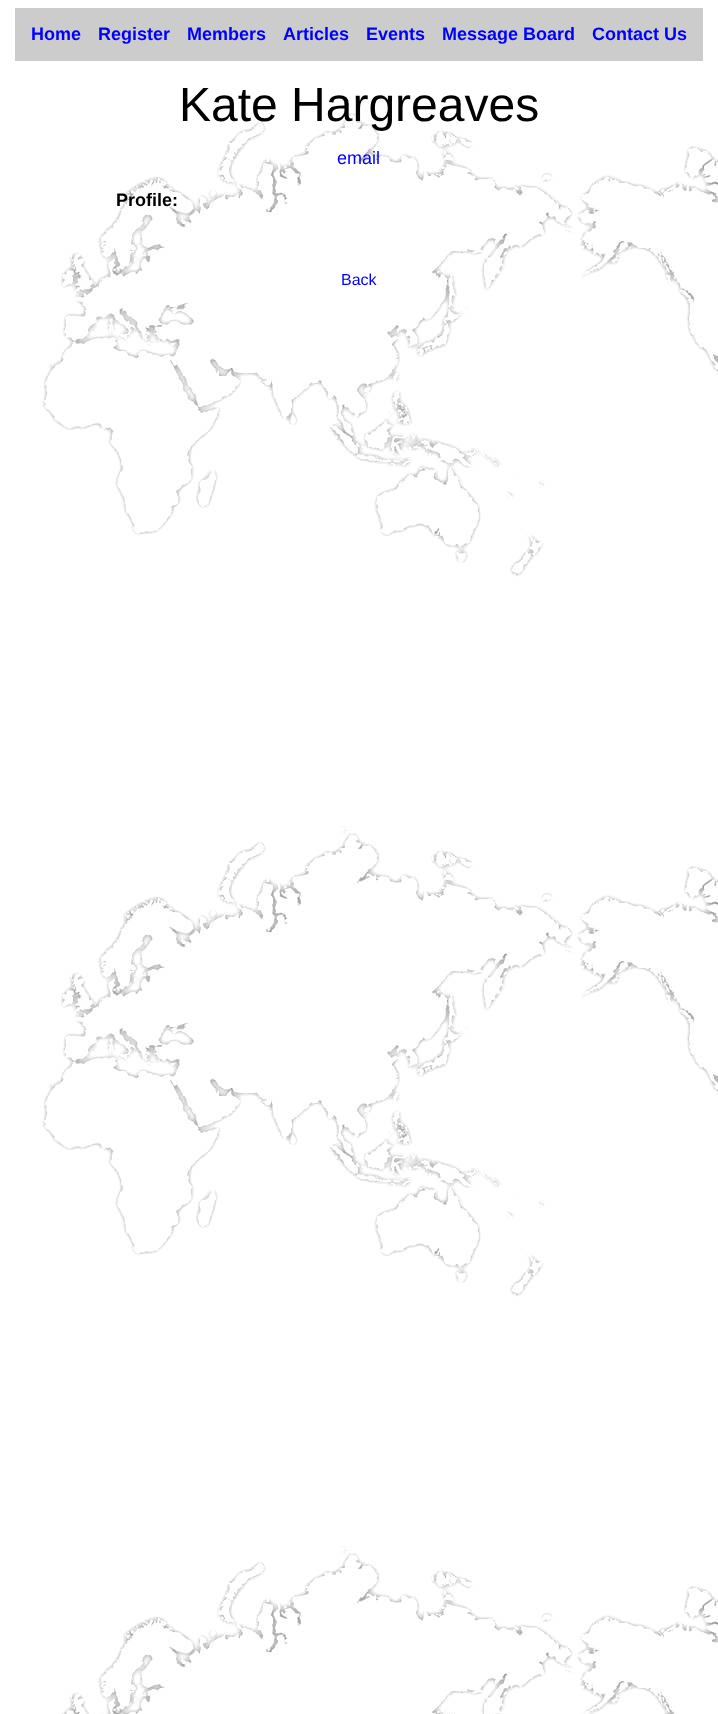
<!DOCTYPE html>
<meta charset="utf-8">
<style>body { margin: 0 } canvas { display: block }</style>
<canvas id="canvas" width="718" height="1714"></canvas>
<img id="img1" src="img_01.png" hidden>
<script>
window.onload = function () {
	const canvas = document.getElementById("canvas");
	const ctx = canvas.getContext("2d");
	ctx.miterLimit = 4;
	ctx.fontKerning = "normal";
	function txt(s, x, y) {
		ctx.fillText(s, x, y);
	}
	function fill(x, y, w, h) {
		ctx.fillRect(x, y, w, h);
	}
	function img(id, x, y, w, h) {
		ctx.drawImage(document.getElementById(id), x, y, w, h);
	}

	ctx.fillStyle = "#FFFFFF";
	fill(0, 0, 718, 1714);
	img("img1", 40, 106, 678, 1608);
	ctx.fillStyle = "#CCCCCC";
	fill(15, 8, 688, 53);
	ctx.font = "bold 18px Liberation Sans";
	ctx.fillStyle = "#0000FF";
	txt("Home", 31, 40);
	txt("Register", 98, 40);
	txt("Members", 187, 40);
	txt("Articles", 283, 40);
	txt("Events", 366, 40);
	txt("Message Board", 442, 40);
	txt("Contact Us", 592, 40);
	ctx.font = "48px Liberation Sans";
	ctx.fillStyle = "#000000";
	txt("Kate Hargreaves", 179, 121);
	ctx.font = "18px Liberation Sans";
	ctx.fillStyle = "#0000FF";
	txt("email", 337, 164);
	ctx.font = "bold 18px Liberation Sans";
	ctx.fillStyle = "#000000";
	txt("Profile:", 116, 206);
	ctx.font = "16px Liberation Sans";
	ctx.fillStyle = "#0000FF";
	txt("Back", 341, 285);
};
</script>
